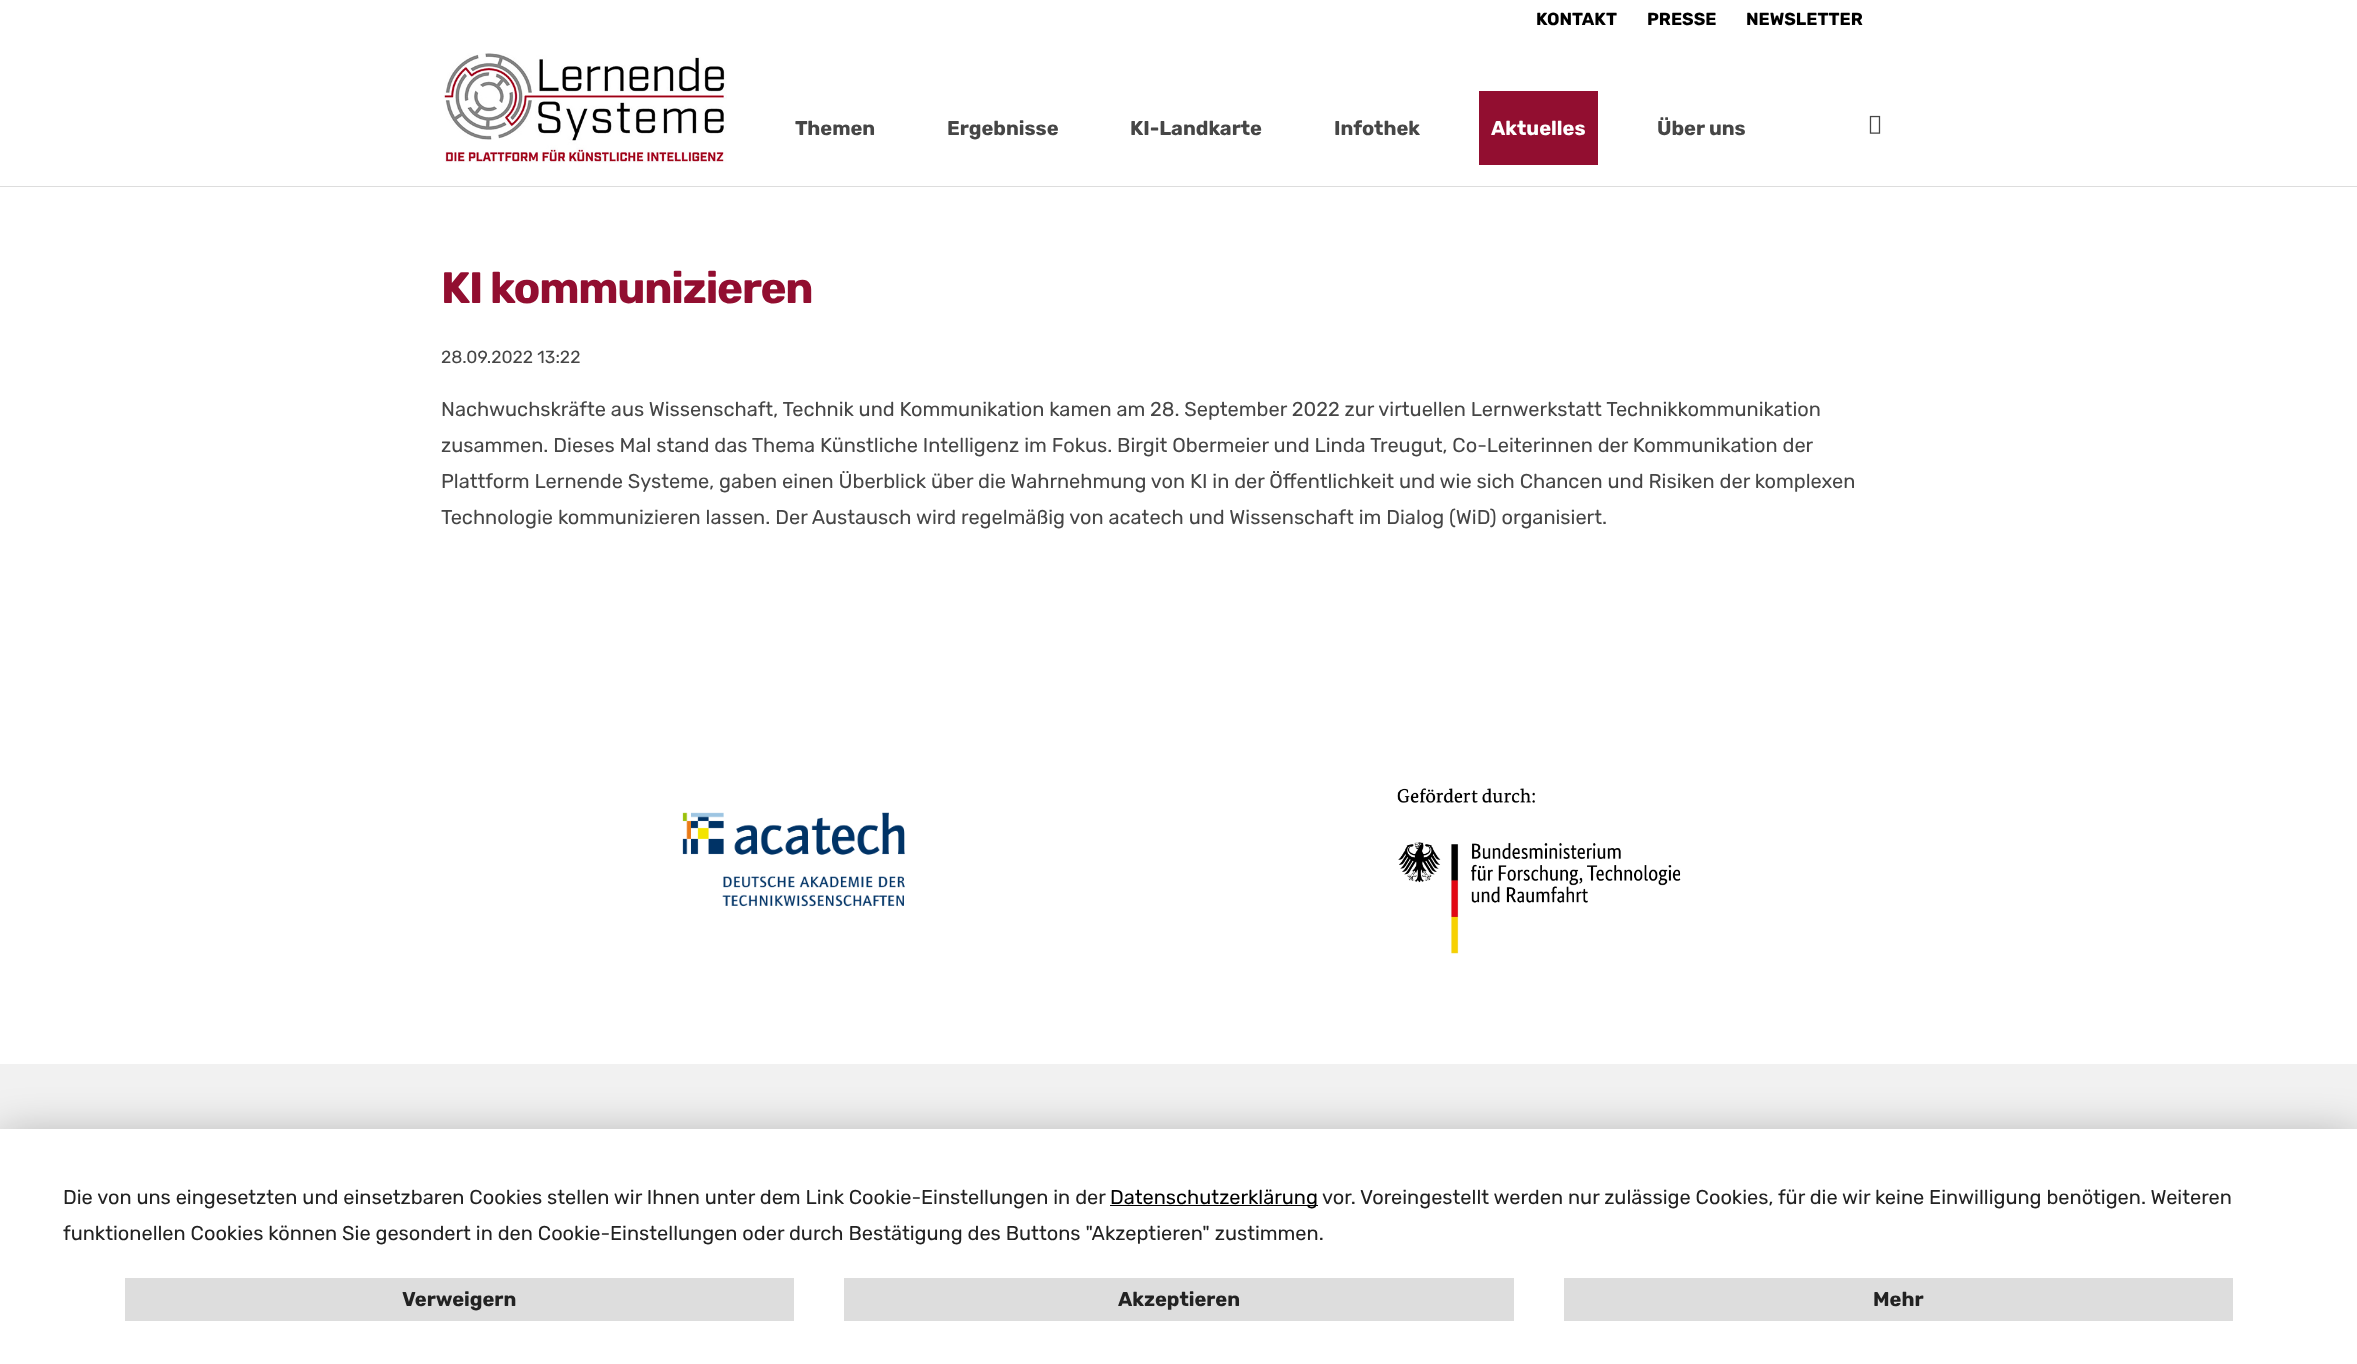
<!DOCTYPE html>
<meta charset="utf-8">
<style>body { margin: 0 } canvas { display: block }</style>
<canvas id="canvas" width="2357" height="1364"></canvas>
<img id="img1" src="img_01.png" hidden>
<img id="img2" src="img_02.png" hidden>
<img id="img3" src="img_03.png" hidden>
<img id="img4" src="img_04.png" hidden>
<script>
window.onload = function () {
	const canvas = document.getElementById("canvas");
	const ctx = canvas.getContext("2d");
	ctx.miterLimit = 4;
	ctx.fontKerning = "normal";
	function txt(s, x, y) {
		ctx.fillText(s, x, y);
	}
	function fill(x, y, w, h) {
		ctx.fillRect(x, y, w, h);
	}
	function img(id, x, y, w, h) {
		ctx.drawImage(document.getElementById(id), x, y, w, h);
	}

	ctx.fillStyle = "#FFFFFF";
	fill(0, 0, 2357, 1364);
	ctx.fillStyle = "#DDDDDD";
	fill(0, 186, 2357, 1);
	img("img1", 443, 53, 284, 110);
	ctx.fillStyle = "#920E30";
	fill(1479, 91, 119, 74);
	img("img2", 1869, 115, 12, 19);
	img("img3", 682, 812, 223, 95);
	img("img4", 1397, 788, 284, 166);
	ctx.fillStyle = "#F1F1F1";
	fill(0, 1064, 2357, 65);
	ctx.fillStyle = "rgba(0, 0, 0, 0.3)";
	ctx.filter = "blur(22.5px)";
	ctx.beginPath();
	ctx.rect(0, 1136, 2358, 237);
	ctx.fill();
	ctx.filter = "none";
	ctx.fillStyle = "#FFFFFF";
	fill(0, 1129, 2357, 235);
	ctx.fillStyle = "#000000";
	fill(1110, 1205, 208, 1);
	ctx.fillStyle = "#DDDDDD";
	fill(125, 1278, 669, 43);
	fill(844, 1278, 670, 43);
	fill(1564, 1278, 669, 43);
	ctx.font = "300 17.5px Rubik";
	ctx.fillStyle = "#000000";
	txt("KONTAKT", 1536, 25);
	txt("PRESSE", 1647, 25);
	txt("NEWSLETTER", 1746, 25);
	ctx.font = "300 20px Rubik";
	ctx.fillStyle = "#464646";
	txt("Themen", 795, 135);
	txt("Ergebnisse", 947, 135);
	txt("KI-Landkarte", 1130, 135);
	txt("Infothek", 1334, 135);
	ctx.fillStyle = "#FFFFFF";
	txt("Aktuelles", 1491, 135);
	ctx.fillStyle = "#464646";
	txt("Über uns", 1657, 135);
	ctx.letterSpacing = "-1.25px";
	ctx.font = "300 44px Rubik";
	ctx.fillStyle = "#920E30";
	txt("KI kommunizieren", 441, 303);
	ctx.letterSpacing = "0px";
	ctx.font = "300 17.5px 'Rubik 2'";
	ctx.fillStyle = "#464646";
	txt("28.09.2022 13:22", 441, 363);
	ctx.font = "300 20px 'Rubik 2'";
	txt("Nachwuchskräfte aus Wissenschaft, Technik und Kommunikation kamen am 28. September 2022 zur virtuellen Lernwerkstatt Technikkommunikation", 441, 416);
	txt("zusammen. Dieses Mal stand das Thema Künstliche Intelligenz im Fokus. Birgit Obermeier und Linda Treugut, Co-Leiterinnen der Kommunikation der", 441, 452);
	txt("Plattform Lernende Systeme, gaben einen Überblick über die Wahrnehmung von KI in der Öffentlichkeit und wie sich Chancen und Risiken der komplexen", 441, 488);
	txt("Technologie kommunizieren lassen. Der Austausch wird regelmäßig von acatech und Wissenschaft im Dialog (WiD) organisiert.", 441, 524);
	ctx.fillStyle = "#222222";
	txt("Die von uns eingesetzten und einsetzbaren Cookies stellen wir Ihnen unter dem Link Cookie-Einstellungen in der", 63, 1204);
	ctx.fillStyle = "#000000";
	txt("Datenschutzerklärung", 1110, 1204);
	ctx.fillStyle = "#222222";
	txt("vor. Voreingestellt werden nur zulässige Cookies, für die wir keine Einwilligung benötigen. Weiteren", 1322, 1204);
	txt("funktionellen Cookies können Sie gesondert in den Cookie-Einstellungen oder durch Bestätigung des Buttons \"Akzeptieren\" zustimmen.", 63, 1240);
	ctx.font = "300 20px Rubik";
	txt("Verweigern", 402, 1306);
	txt("Akzeptieren", 1118, 1306);
	txt("Mehr", 1873, 1306);
};
</script>
